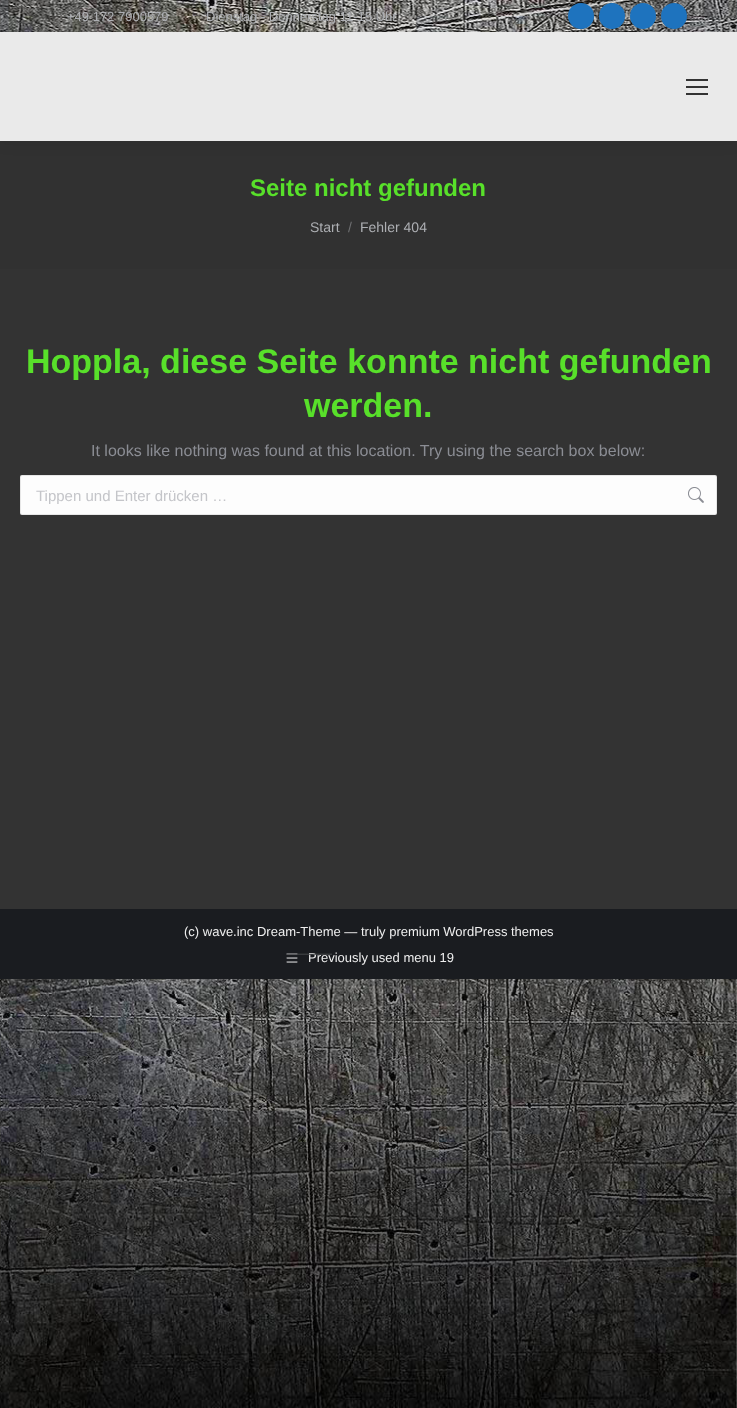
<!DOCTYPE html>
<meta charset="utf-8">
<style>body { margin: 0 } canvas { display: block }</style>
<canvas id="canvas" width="737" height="1408"></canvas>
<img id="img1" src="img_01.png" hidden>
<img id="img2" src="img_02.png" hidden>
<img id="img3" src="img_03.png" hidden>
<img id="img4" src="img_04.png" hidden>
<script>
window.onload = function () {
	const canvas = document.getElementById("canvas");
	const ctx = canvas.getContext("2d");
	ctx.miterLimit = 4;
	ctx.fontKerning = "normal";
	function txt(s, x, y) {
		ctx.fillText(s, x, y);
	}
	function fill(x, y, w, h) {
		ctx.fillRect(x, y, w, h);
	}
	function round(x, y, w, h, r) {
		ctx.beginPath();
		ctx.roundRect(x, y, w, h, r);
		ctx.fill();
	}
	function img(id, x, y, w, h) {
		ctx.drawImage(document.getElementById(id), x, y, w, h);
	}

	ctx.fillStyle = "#FFFFFF";
	fill(0, 0, 737, 1408);
	img("img1", 0, 979, 737, 429);
	ctx.fillStyle = "#333333";
	fill(0, 269, 737, 640);
	ctx.fillStyle = "#313131";
	fill(0, 141, 737, 128);
	ctx.fillStyle = "rgba(0, 0, 0, 0.07)";
	ctx.filter = "blur(7.5px)";
	ctx.beginPath();
	ctx.rect(-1, -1, 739, 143);
	ctx.fill();
	ctx.filter = "none";
	ctx.fillStyle = "#EAEAEA";
	fill(0, 32, 737, 109);
	img("img2", 0, 0, 737, 32);
	ctx.fillStyle = "#1E73BE";
	ctx.beginPath();
	ctx.arc(581, 16, 13, 0, Math.PI * 2);
	ctx.fill();
	ctx.beginPath();
	ctx.arc(612, 16, 13, 0, Math.PI * 2);
	ctx.fill();
	ctx.beginPath();
	ctx.arc(643, 16, 13, 0, Math.PI * 2);
	ctx.fill();
	ctx.beginPath();
	ctx.arc(674, 16, 13, 0, Math.PI * 2);
	ctx.fill();
	ctx.fillStyle = "rgba(51, 51, 51, 0.11)";
	fill(0, 31, 737, 1);
	ctx.fillStyle = "#333333";
	fill(686, 79, 22, 2);
	fill(686, 86, 22, 2);
	fill(686, 93, 22, 2);
	ctx.fillStyle = "#FDFDFD";
	round(20, 475, 697, 40, 2);
	ctx.beginPath();
	ctx.roundRect(20.5, 475.5, 696, 39, 1.5);
	ctx.strokeStyle = "rgba(51, 51, 51, 0.11)";
	ctx.stroke();
	img("img3", 688, 487, 16, 16);
	ctx.fillStyle = "#1A1C20";
	fill(0, 909, 737, 70);
	img("img4", 286, 953, 12, 10);
	ctx.font = "13px Liberation Sans";
	ctx.fillStyle = "#ADAFB3";
	txt("+49 172 7900579", 67, 21);
	txt("Dienstag - Donnerstag 11-15 Uhr", 206, 21);
	ctx.font = "bold 24px Liberation Sans";
	ctx.fillStyle = "#58E02A";
	txt("Seite nicht gefunden", 250, 196);
	ctx.font = "14px Liberation Sans";
	ctx.fillStyle = "#ADAFB3";
	txt("Start", 310, 232);
	ctx.fillStyle = "#6F7072";
	txt("/", 348, 232);
	ctx.fillStyle = "#ADAFB3";
	txt("Fehler 404", 360, 232);
	ctx.font = "bold 34px Liberation Sans";
	ctx.fillStyle = "#58E02A";
	txt("Hoppla, diese Seite konnte nicht gefunden", 26, 373);
	txt("werden.", 304, 417);
	ctx.font = "16px Liberation Sans";
	ctx.fillStyle = "#8B8D94";
	txt("It looks like nothing was found at this location. Try using the search box below:", 91, 456);
	ctx.save();
	ctx.beginPath();
	ctx.rect(36, 487, 650, 17);
	ctx.clip();
	ctx.font = "15px Liberation Sans";
	ctx.fillStyle = "#C4C5C9";
	txt("Tippen und Enter drücken …", 36, 501);
	ctx.restore();
	ctx.font = "13px Liberation Sans";
	ctx.fillStyle = "#EEEEEE";
	txt("(c) wave.inc Dream-Theme — truly premium WordPress themes", 184, 936);
	txt("Previously used menu 19", 308, 962);
	ctx.font = "15px Liberation Sans";
	ctx.fillStyle = "#45474A";
	txt("———", 287, 958);
};
</script>
